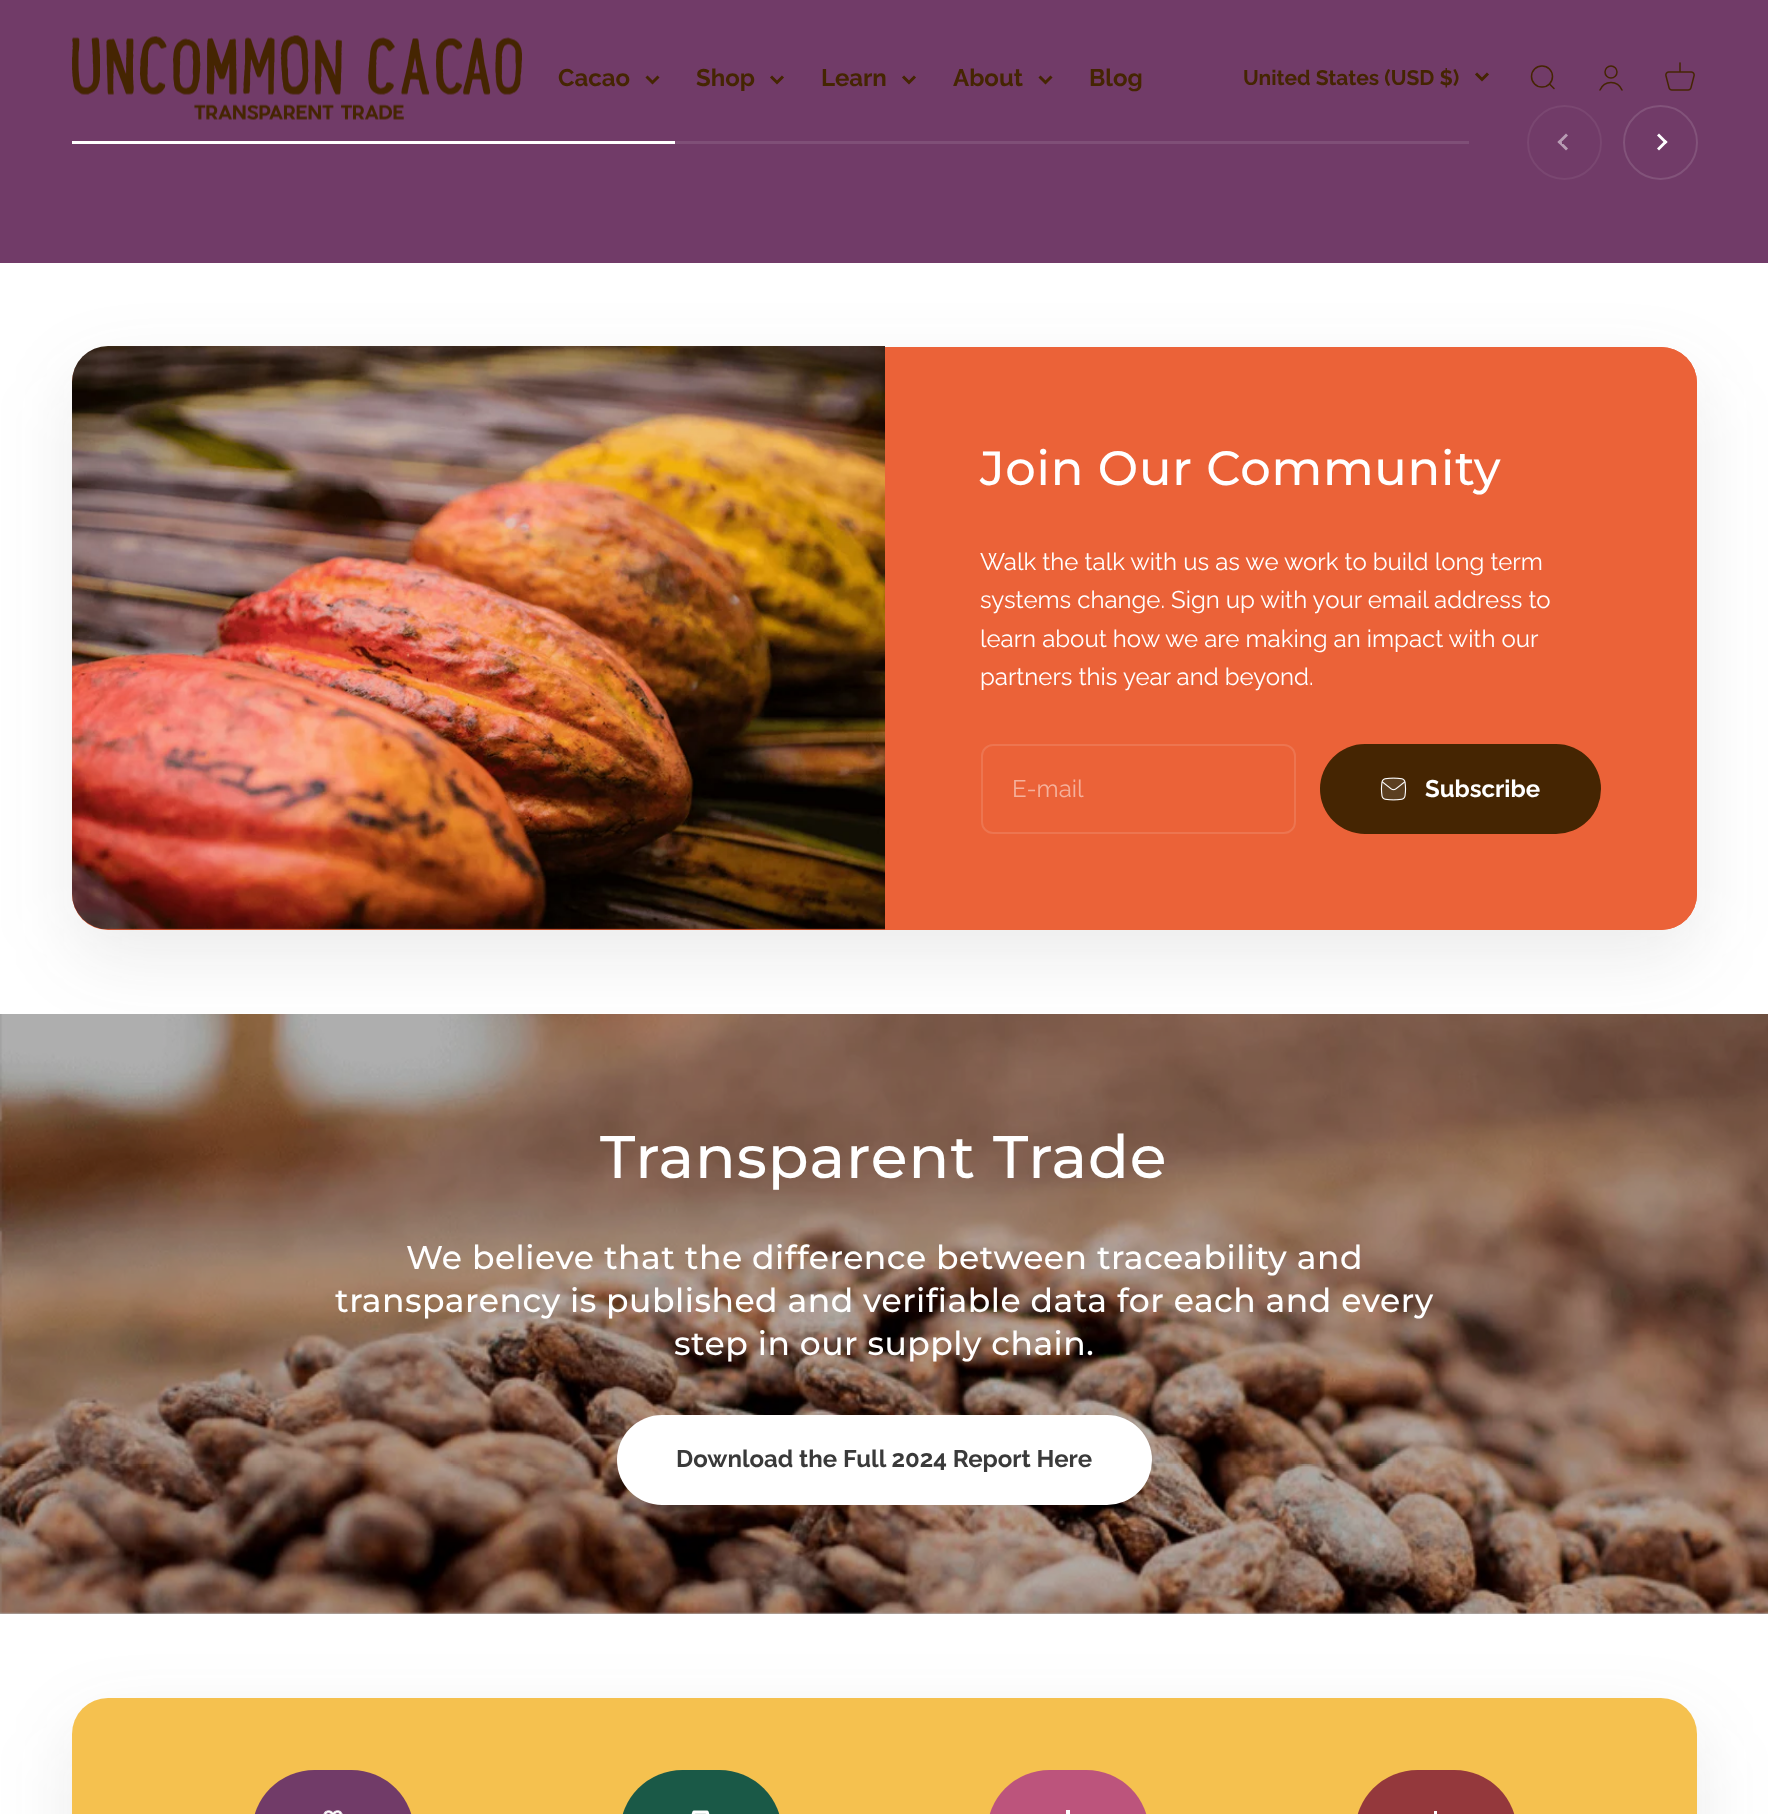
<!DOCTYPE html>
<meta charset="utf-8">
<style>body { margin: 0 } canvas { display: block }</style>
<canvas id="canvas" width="1768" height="1814"></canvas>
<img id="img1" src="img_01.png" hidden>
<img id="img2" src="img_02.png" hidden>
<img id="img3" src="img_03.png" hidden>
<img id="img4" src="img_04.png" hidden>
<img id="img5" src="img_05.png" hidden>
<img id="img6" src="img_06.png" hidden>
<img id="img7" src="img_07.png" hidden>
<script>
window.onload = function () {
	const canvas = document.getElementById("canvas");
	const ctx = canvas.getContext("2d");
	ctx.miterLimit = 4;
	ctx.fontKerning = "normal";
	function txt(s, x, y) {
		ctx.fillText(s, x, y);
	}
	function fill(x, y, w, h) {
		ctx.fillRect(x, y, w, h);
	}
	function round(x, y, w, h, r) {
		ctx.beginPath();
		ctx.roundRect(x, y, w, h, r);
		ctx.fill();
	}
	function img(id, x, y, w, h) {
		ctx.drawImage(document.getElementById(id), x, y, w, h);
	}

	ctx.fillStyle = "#FFFFFF";
	fill(0, 0, 1768, 1814);
	ctx.fillStyle = "#713B68";
	fill(0, 0, 1768, 263);
	img("img1", 72, 35, 450, 85);
	ctx.beginPath();
	ctx.moveTo(646.5, 76.5);
	ctx.lineTo(652.5, 82.5);
	ctx.lineTo(658.5, 76.5);
	ctx.strokeStyle = "#452502";
	ctx.lineWidth = 3;
	ctx.stroke();
	ctx.beginPath();
	ctx.moveTo(771, 76.5);
	ctx.lineTo(777, 82.5);
	ctx.lineTo(783, 76.5);
	ctx.stroke();
	ctx.beginPath();
	ctx.moveTo(903, 76.5);
	ctx.lineTo(909, 82.5);
	ctx.lineTo(915, 76.5);
	ctx.stroke();
	ctx.beginPath();
	ctx.moveTo(1039.5, 76.5);
	ctx.lineTo(1045.5, 82.5);
	ctx.lineTo(1051.5, 76.5);
	ctx.stroke();
	ctx.beginPath();
	ctx.moveTo(1476, 73.5);
	ctx.lineTo(1482, 79.5);
	ctx.lineTo(1488, 73.5);
	ctx.stroke();
	ctx.beginPath();
	ctx.arc(1542, 76.5, 10.5, 0, Math.PI * 2);
	ctx.lineWidth = 1.5;
	ctx.stroke();
	ctx.beginPath();
	ctx.moveTo(1549.5, 84);
	ctx.lineTo(1554, 88.5);
	ctx.lineCap = "round";
	ctx.lineJoin = "round";
	ctx.stroke();
	ctx.beginPath();
	ctx.arc(1611, 72, 6, 0, Math.PI * 2);
	ctx.stroke();
	ctx.beginPath();
	ctx.moveTo(1600, 90);
	ctx.bezierCurveTo(1604.5, 80, 1617.5, 80, 1622, 90);
	ctx.lineJoin = "miter";
	ctx.stroke();
	img("img2", 1665, 62, 30, 29);
	ctx.fillStyle = "#7F4F77";
	fill(675, 141, 794, 3);
	ctx.fillStyle = "#FFFFFF";
	fill(72, 141, 603, 3);
	ctx.beginPath();
	ctx.arc(1564.5, 142.5, 36.5, 0, Math.PI * 2);
	ctx.strokeStyle = "#7A4771";
	ctx.lineWidth = 2;
	ctx.stroke();
	ctx.fillStyle = "#B89DB4";
	ctx.beginPath();
	ctx.moveTo(1566, 150.5);
	ctx.lineTo(1557.5, 142);
	ctx.lineTo(1559.5, 140);
	ctx.lineTo(1568, 148.5);
	ctx.closePath();
	ctx.fill();
	ctx.beginPath();
	ctx.moveTo(1559.5, 144);
	ctx.lineTo(1557.5, 142);
	ctx.lineTo(1566, 133.5);
	ctx.lineTo(1568, 135.5);
	ctx.closePath();
	ctx.fill();
	ctx.fillStyle = "#713B68";
	fill(1562, 141, 7, 3);
	ctx.beginPath();
	ctx.arc(1660.5, 142.5, 36.5, 0, Math.PI * 2);
	ctx.strokeStyle = "#82537A";
	ctx.stroke();
	ctx.fillStyle = "#FFFFFF";
	ctx.beginPath();
	ctx.moveTo(1659, 133.5);
	ctx.lineTo(1667.5, 142);
	ctx.lineTo(1665.5, 144);
	ctx.lineTo(1657, 135.5);
	ctx.closePath();
	ctx.fill();
	ctx.beginPath();
	ctx.moveTo(1665.5, 140);
	ctx.lineTo(1667.5, 142);
	ctx.lineTo(1659, 150.5);
	ctx.lineTo(1657, 148.5);
	ctx.closePath();
	ctx.fill();
	ctx.fillStyle = "rgba(58, 58, 58, 0.1)";
	ctx.filter = "blur(37.5px)";
	ctx.beginPath();
	ctx.roundRect(72, 374, 1625, 583, 36);
	ctx.fill();
	ctx.filter = "none";
	ctx.fillStyle = "#EB6238";
	round(72, 347, 1625, 583, 36);
	img("img3", 72, 346, 813, 584);
	ctx.beginPath();
	ctx.roundRect(885, 347, 812, 583, [0, 36, 36, 0]);
	ctx.fill();
	ctx.beginPath();
	ctx.roundRect(982, 745, 313, 88, 11);
	ctx.strokeStyle = "#ED7550";
	ctx.stroke();
	ctx.fillStyle = "#452502";
	round(1320, 744, 281, 90, 45);
	img("img4", 1380, 777, 27, 24);
	img("img5", 0, 1014, 1768, 600);
	ctx.fillStyle = "rgba(0, 0, 0, 0.3)";
	fill(0, 1014, 1768, 600);
	ctx.fillStyle = "#FFFFFF";
	round(617, 1415, 535, 90, 45);
	ctx.fillStyle = "rgba(58, 58, 58, 0.1)";
	ctx.filter = "blur(37.5px)";
	ctx.beginPath();
	ctx.roundRect(72, 1725, 1625, 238, 36);
	ctx.fill();
	ctx.filter = "none";
	ctx.fillStyle = "#F5C14F";
	round(72, 1698, 1625, 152, 36);
	ctx.fillStyle = "#713B68";
	round(252, 1770, 162, 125, 81);
	img("img6", 323, 1810, 20, 4);
	ctx.fillStyle = "#1A5947";
	round(620, 1770, 162, 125, 81);
	img("img7", 691, 1810, 19, 4);
	ctx.fillStyle = "#BC547C";
	round(987, 1770, 162, 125, 81);
	ctx.fillStyle = "#FFFFFF";
	fill(1066, 1810, 4, 4);
	ctx.fillStyle = "#94383C";
	round(1355, 1770, 162, 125, 81);
	ctx.fillStyle = "#FFFFFF";
	fill(1434, 1811, 3, 3);
	ctx.font = "bold 24px Raleway";
	ctx.fillStyle = "#452502";
	txt("Cacao", 558, 86);
	txt("Shop", 696, 86);
	txt("Learn", 821, 86);
	txt("About", 953, 86);
	txt("Blog", 1089, 86);
	ctx.font = "bold 21px Raleway";
	txt("United States (USD $)", 1243, 85);
	ctx.letterSpacing = "0.75px";
	ctx.font = "500 48px Montserrat";
	ctx.fillStyle = "#FFFFFF";
	txt("Join Our Community", 980, 485);
	ctx.letterSpacing = "0px";
	ctx.font = "24px Raleway";
	txt("Walk the talk with us as we work to build long term", 980, 570);
	txt("systems change. Sign up with your email address to", 980, 608);
	txt("learn about how we are making an impact with our", 980, 647);
	txt("partners this year and beyond.", 980, 685);
	ctx.fillStyle = "#F5B19C";
	txt("E-mail", 1012, 797);
	ctx.font = "bold 24px Raleway";
	ctx.fillStyle = "#FFFFFF";
	txt("Subscribe", 1425, 797);
	ctx.letterSpacing = "0.9px";
	ctx.font = "500 60px Montserrat";
	txt("Transparent Trade", 600, 1178);
	ctx.letterSpacing = "0.5px";
	ctx.font = "500 33px Montserrat";
	txt("We believe that the difference between traceability and", 406, 1269);
	txt("transparency is published and verifiable data for each and every", 335, 1312);
	txt("step in our supply chain.", 674, 1355);
	ctx.letterSpacing = "0px";
	ctx.font = "bold 24px Raleway";
	ctx.fillStyle = "#3A3A3A";
	txt("Download the Full 2024 Report Here", 676, 1467);
};
</script>
